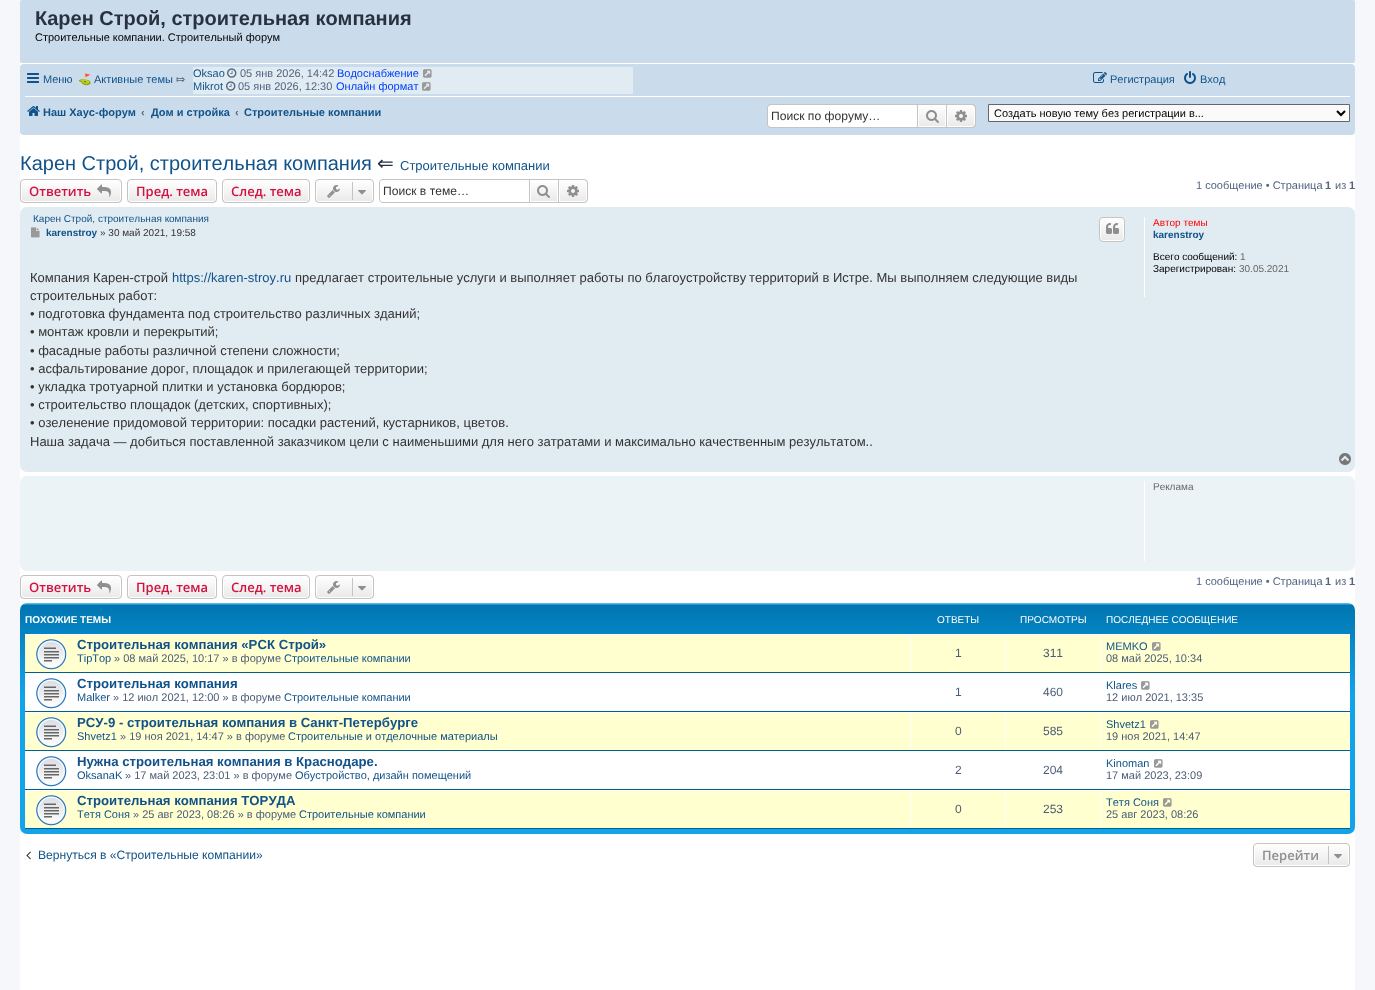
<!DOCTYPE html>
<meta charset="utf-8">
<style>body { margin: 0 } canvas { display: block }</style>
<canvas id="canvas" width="1375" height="990"></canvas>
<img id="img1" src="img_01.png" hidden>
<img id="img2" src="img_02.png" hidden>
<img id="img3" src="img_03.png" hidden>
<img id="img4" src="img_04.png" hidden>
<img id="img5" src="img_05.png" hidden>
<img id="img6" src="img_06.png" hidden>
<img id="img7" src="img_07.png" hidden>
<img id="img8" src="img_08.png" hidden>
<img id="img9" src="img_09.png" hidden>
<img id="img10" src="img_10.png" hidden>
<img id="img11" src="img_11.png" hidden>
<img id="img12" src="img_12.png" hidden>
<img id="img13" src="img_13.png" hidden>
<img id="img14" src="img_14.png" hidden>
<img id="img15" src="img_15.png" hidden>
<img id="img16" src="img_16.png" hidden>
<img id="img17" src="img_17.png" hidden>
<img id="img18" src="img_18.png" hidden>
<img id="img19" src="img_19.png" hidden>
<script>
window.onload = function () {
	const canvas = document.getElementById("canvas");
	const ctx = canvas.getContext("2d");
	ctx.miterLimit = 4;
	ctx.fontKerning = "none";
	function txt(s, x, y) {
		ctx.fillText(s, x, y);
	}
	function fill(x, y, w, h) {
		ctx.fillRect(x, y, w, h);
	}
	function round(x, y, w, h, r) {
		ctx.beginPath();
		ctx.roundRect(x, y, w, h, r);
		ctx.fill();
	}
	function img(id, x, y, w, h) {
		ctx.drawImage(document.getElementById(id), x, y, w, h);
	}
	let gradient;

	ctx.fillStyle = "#F5F7FA";
	fill(0, 0, 1375, 990);
	ctx.fillStyle = "#FFFFFF";
	round(20, 0, 1335, 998, 8);
	ctx.fillStyle = "#CADCEB";
	round(20, 0, 1335, 63, 2);
	round(20, 64, 1335, 71, 4);
	img("img1", 27, 73, 12, 10);
	ctx.fillStyle = "#E1EBF2";
	fill(193, 67, 440, 27);
	img("img2", 227, 68, 10, 10);
	img("img3", 423, 69, 9, 9);
	img("img2", 226, 81, 10, 10);
	img("img3", 422, 82, 9, 9);
	img("img4", 1093, 72, 14, 11);
	img("img5", 1184, 71, 12, 13);
	ctx.fillStyle = "#FFFFFF";
	fill(25, 96, 1325, 1);
	img("img6", 27, 106, 13, 10);
	ctx.beginPath();
	ctx.roundRect(768, 105, 149, 22, [3, 0, 0, 3]);
	ctx.fill();
	ctx.fillStyle = "#C7C3BF";
	ctx.beginPath();
	ctx.moveTo(771, 104);
	ctx.lineTo(917, 104);
	ctx.lineTo(917, 128);
	ctx.lineTo(771, 128);
	ctx.bezierCurveTo(769, 128, 767, 126, 767, 124);
	ctx.lineTo(767, 108);
	ctx.bezierCurveTo(767, 106, 769, 104, 771, 104);
	ctx.closePath();
	ctx.moveTo(771, 105);
	ctx.lineTo(917, 105);
	ctx.lineTo(917, 127);
	ctx.lineTo(771, 127);
	ctx.bezierCurveTo(769, 127, 768, 126, 768, 124);
	ctx.lineTo(768, 108);
	ctx.bezierCurveTo(768, 106, 769, 105, 771, 105);
	ctx.closePath();
	ctx.fill("evenodd");
	gradient = ctx.createLinearGradient(932, 105, 932, 127);
	gradient.addColorStop(0, "#FFFFFF");
	gradient.addColorStop(1, "#E9E9E9");
	ctx.fillStyle = gradient;
	fill(919, 106, 26, 20);
	ctx.strokeStyle = "#FFFFFF";
	ctx.strokeRect(918.5, 105.5, 27, 21);
	ctx.strokeStyle = "#C7C3BF";
	ctx.strokeRect(917.5, 104.5, 29, 23);
	img("img7", 926, 110, 13, 13);
	gradient = ctx.createLinearGradient(961, 105, 961, 127);
	gradient.addColorStop(0, "#FFFFFF");
	gradient.addColorStop(1, "#E9E9E9");
	ctx.fillStyle = gradient;
	ctx.beginPath();
	ctx.roundRect(947.5, 105.5, 27, 21, [0, 2.5, 2.5, 0]);
	ctx.fill();
	ctx.strokeStyle = "#FFFFFF";
	ctx.stroke();
	ctx.fillStyle = "#C7C3BF";
	ctx.beginPath();
	ctx.moveTo(947, 104);
	ctx.lineTo(972, 104);
	ctx.bezierCurveTo(974, 104, 976, 106, 976, 108);
	ctx.lineTo(976, 124);
	ctx.bezierCurveTo(976, 126, 974, 128, 972, 128);
	ctx.lineTo(947, 128);
	ctx.closePath();
	ctx.moveTo(947, 105);
	ctx.lineTo(972, 105);
	ctx.bezierCurveTo(973.5, 105, 975, 106.5, 975, 108);
	ctx.lineTo(975, 124);
	ctx.bezierCurveTo(975, 125.5, 973.5, 127, 972, 127);
	ctx.lineTo(947, 127);
	ctx.closePath();
	ctx.fill("evenodd");
	img("img8", 955, 110, 12, 12);
	ctx.fillStyle = "#FAFAFA";
	ctx.beginPath();
	ctx.rect(988.5, 104.5, 361, 17);
	ctx.fill();
	ctx.strokeStyle = "#666666";
	ctx.stroke();
	ctx.beginPath();
	ctx.moveTo(1337, 111);
	ctx.lineTo(1341, 115);
	ctx.lineTo(1345, 111);
	ctx.strokeStyle = "#000000";
	ctx.lineWidth = 2;
	ctx.stroke();
	ctx.save();
	ctx.beginPath();
	ctx.roundRect(20, 179, 102, 24, 4);
	ctx.clip();
	gradient = ctx.createLinearGradient(71, 180, 71, 202);
	gradient.addColorStop(0, "#FFFFFF");
	gradient.addColorStop(1, "#E9E9E9");
	ctx.fillStyle = gradient;
	fill(20, 180, 102, 22);
	ctx.restore();
	ctx.beginPath();
	ctx.roundRect(21.5, 180.5, 99, 21, 2.5);
	ctx.strokeStyle = "#FFFFFF";
	ctx.lineWidth = 1;
	ctx.stroke();
	ctx.beginPath();
	ctx.roundRect(20.5, 179.5, 101, 23, 3.5);
	ctx.strokeStyle = "#C7C3BF";
	ctx.stroke();
	img("img9", 97, 184, 14, 13);
	ctx.save();
	ctx.beginPath();
	ctx.roundRect(127, 179, 90, 24, 4);
	ctx.clip();
	gradient = ctx.createLinearGradient(172, 180, 172, 202);
	gradient.addColorStop(0, "#FFFFFF");
	gradient.addColorStop(1, "#E9E9E9");
	ctx.fillStyle = gradient;
	fill(127, 180, 90, 22);
	ctx.restore();
	ctx.beginPath();
	ctx.roundRect(128.5, 180.5, 87, 21, 2.5);
	ctx.strokeStyle = "#FFFFFF";
	ctx.stroke();
	ctx.beginPath();
	ctx.roundRect(127.5, 179.5, 89, 23, 3.5);
	ctx.strokeStyle = "#C7C3BF";
	ctx.stroke();
	ctx.save();
	ctx.beginPath();
	ctx.roundRect(222, 179, 88, 24, 4);
	ctx.clip();
	gradient = ctx.createLinearGradient(266, 180, 266, 202);
	gradient.addColorStop(0, "#FFFFFF");
	gradient.addColorStop(1, "#E9E9E9");
	ctx.fillStyle = gradient;
	fill(222, 180, 88, 22);
	ctx.restore();
	ctx.beginPath();
	ctx.roundRect(223.5, 180.5, 85, 21, 2.5);
	ctx.strokeStyle = "#FFFFFF";
	ctx.stroke();
	ctx.beginPath();
	ctx.roundRect(222.5, 179.5, 87, 23, 3.5);
	ctx.strokeStyle = "#C7C3BF";
	ctx.stroke();
	ctx.save();
	ctx.beginPath();
	ctx.roundRect(315, 179, 59, 24, 4);
	ctx.clip();
	gradient = ctx.createLinearGradient(345, 180, 345, 202);
	gradient.addColorStop(0, "#FFFFFF");
	gradient.addColorStop(1, "#E9E9E9");
	ctx.fillStyle = gradient;
	fill(315, 180, 59, 22);
	ctx.restore();
	ctx.beginPath();
	ctx.roundRect(316.5, 180.5, 56, 21, 2.5);
	ctx.strokeStyle = "#FFFFFF";
	ctx.stroke();
	ctx.beginPath();
	ctx.roundRect(315.5, 179.5, 58, 23, 3.5);
	ctx.strokeStyle = "#C7C3BF";
	ctx.stroke();
	img("img10", 327, 185, 13, 13);
	ctx.fillStyle = "#C7C3BF";
	fill(352, 182, 1, 18);
	img("img11", 358, 190, 8, 5);
	ctx.beginPath();
	ctx.moveTo(383, 179);
	ctx.lineTo(529, 179);
	ctx.lineTo(529, 203);
	ctx.lineTo(383, 203);
	ctx.bezierCurveTo(381, 203, 379, 201, 379, 199);
	ctx.lineTo(379, 183);
	ctx.bezierCurveTo(379, 181, 381, 179, 383, 179);
	ctx.closePath();
	ctx.moveTo(383, 180);
	ctx.lineTo(529, 180);
	ctx.lineTo(529, 202);
	ctx.lineTo(383, 202);
	ctx.bezierCurveTo(381, 202, 380, 201, 380, 199);
	ctx.lineTo(380, 183);
	ctx.bezierCurveTo(380, 181, 381, 180, 383, 180);
	ctx.closePath();
	ctx.fill("evenodd");
	gradient = ctx.createLinearGradient(544, 180, 544, 202);
	gradient.addColorStop(0, "#FFFFFF");
	gradient.addColorStop(1, "#E9E9E9");
	ctx.fillStyle = gradient;
	fill(531, 183, 26, 18);
	ctx.strokeRect(529.5, 179.5, 29, 23);
	img("img7", 537, 185, 13, 13);
	gradient = ctx.createLinearGradient(573, 180, 573, 202);
	gradient.addColorStop(0, "#FFFFFF");
	gradient.addColorStop(1, "#E9E9E9");
	ctx.fillStyle = gradient;
	ctx.beginPath();
	ctx.roundRect(559.5, 180.5, 27, 21, [0, 2.5, 2.5, 0]);
	ctx.fill();
	ctx.strokeStyle = "#FFFFFF";
	ctx.stroke();
	ctx.fillStyle = "#C7C3BF";
	ctx.beginPath();
	ctx.moveTo(559, 179);
	ctx.lineTo(584, 179);
	ctx.bezierCurveTo(586, 179, 588, 181, 588, 183);
	ctx.lineTo(588, 199);
	ctx.bezierCurveTo(588, 201, 586, 203, 584, 203);
	ctx.lineTo(559, 203);
	ctx.closePath();
	ctx.moveTo(559, 180);
	ctx.lineTo(584, 180);
	ctx.bezierCurveTo(585.5, 180, 587, 181.5, 587, 183);
	ctx.lineTo(587, 199);
	ctx.bezierCurveTo(587, 200.5, 585.5, 202, 584, 202);
	ctx.lineTo(559, 202);
	ctx.closePath();
	ctx.fill("evenodd");
	img("img8", 567, 185, 12, 12);
	ctx.fillStyle = "#E1EBF2";
	round(20, 207, 1335, 265, 7);
	ctx.save();
	ctx.beginPath();
	ctx.roundRect(1099, 217, 26, 25, 4);
	ctx.clip();
	gradient = ctx.createLinearGradient(1112, 218, 1112, 241);
	gradient.addColorStop(0, "#FFFFFF");
	gradient.addColorStop(1, "#E9E9E9");
	ctx.fillStyle = gradient;
	fill(1099, 218, 26, 23);
	ctx.restore();
	ctx.beginPath();
	ctx.roundRect(1100.5, 218.5, 23, 22, 2.5);
	ctx.stroke();
	ctx.beginPath();
	ctx.roundRect(1099.5, 217.5, 25, 24, 3.5);
	ctx.strokeStyle = "#C7C3BF";
	ctx.stroke();
	img("img12", 1106, 223, 13, 11);
	img("img13", 31, 227, 9, 11);
	ctx.fillStyle = "#FFFFFF";
	fill(1144, 217, 1, 80);
	img("img14", 1339, 453, 12, 12);
	ctx.fillStyle = "#ECF3F7";
	round(20, 476, 1335, 95, 7);
	ctx.fillStyle = "#FFFFFF";
	fill(1144, 481, 1, 80);
	ctx.save();
	ctx.beginPath();
	ctx.roundRect(20, 575, 102, 24, 4);
	ctx.clip();
	gradient = ctx.createLinearGradient(71, 576, 71, 598);
	gradient.addColorStop(0, "#FFFFFF");
	gradient.addColorStop(1, "#E9E9E9");
	ctx.fillStyle = gradient;
	fill(20, 576, 102, 22);
	ctx.restore();
	ctx.beginPath();
	ctx.roundRect(21.5, 576.5, 99, 21, 2.5);
	ctx.strokeStyle = "#FFFFFF";
	ctx.stroke();
	ctx.beginPath();
	ctx.roundRect(20.5, 575.5, 101, 23, 3.5);
	ctx.strokeStyle = "#C7C3BF";
	ctx.stroke();
	img("img9", 97, 580, 14, 13);
	ctx.save();
	ctx.beginPath();
	ctx.roundRect(127, 575, 90, 24, 4);
	ctx.clip();
	gradient = ctx.createLinearGradient(172, 576, 172, 598);
	gradient.addColorStop(0, "#FFFFFF");
	gradient.addColorStop(1, "#E9E9E9");
	ctx.fillStyle = gradient;
	fill(127, 576, 90, 22);
	ctx.restore();
	ctx.beginPath();
	ctx.roundRect(128.5, 576.5, 87, 21, 2.5);
	ctx.strokeStyle = "#FFFFFF";
	ctx.stroke();
	ctx.beginPath();
	ctx.roundRect(127.5, 575.5, 89, 23, 3.5);
	ctx.strokeStyle = "#C7C3BF";
	ctx.stroke();
	ctx.save();
	ctx.beginPath();
	ctx.roundRect(222, 575, 88, 24, 4);
	ctx.clip();
	gradient = ctx.createLinearGradient(266, 576, 266, 598);
	gradient.addColorStop(0, "#FFFFFF");
	gradient.addColorStop(1, "#E9E9E9");
	ctx.fillStyle = gradient;
	fill(222, 576, 88, 22);
	ctx.restore();
	ctx.beginPath();
	ctx.roundRect(223.5, 576.5, 85, 21, 2.5);
	ctx.strokeStyle = "#FFFFFF";
	ctx.stroke();
	ctx.beginPath();
	ctx.roundRect(222.5, 575.5, 87, 23, 3.5);
	ctx.strokeStyle = "#C7C3BF";
	ctx.stroke();
	ctx.save();
	ctx.beginPath();
	ctx.roundRect(315, 575, 59, 24, 4);
	ctx.clip();
	gradient = ctx.createLinearGradient(345, 576, 345, 598);
	gradient.addColorStop(0, "#FFFFFF");
	gradient.addColorStop(1, "#E9E9E9");
	ctx.fillStyle = gradient;
	fill(315, 576, 59, 22);
	ctx.restore();
	ctx.beginPath();
	ctx.roundRect(316.5, 576.5, 56, 21, 2.5);
	ctx.strokeStyle = "#FFFFFF";
	ctx.stroke();
	ctx.beginPath();
	ctx.roundRect(315.5, 575.5, 58, 23, 3.5);
	ctx.strokeStyle = "#C7C3BF";
	ctx.stroke();
	img("img10", 327, 581, 13, 13);
	ctx.fillStyle = "#C7C3BF";
	fill(352, 578, 1, 18);
	img("img11", 358, 586, 8, 5);
	gradient = ctx.createLinearGradient(688, 603, 688, 834);
	gradient.addColorStop(0, "#6ACEFF");
	gradient.addColorStop(0.01, "#0076B1");
	gradient.addColorStop(0.4, "#12A3EB");
	gradient.addColorStop(1, "#12A3EB");
	ctx.fillStyle = gradient;
	round(20, 603, 1335, 231, 7);
	ctx.fillStyle = "#FFFFCF";
	fill(25, 635, 1325, 37);
	ctx.fillStyle = "#FFFFFF";
	fill(25, 634, 1325, 1);
	ctx.fillStyle = "#00608F";
	fill(25, 672, 1325, 1);
	img("img15", 36, 639, 31, 31);
	ctx.fillStyle = "#FFFFFF";
	fill(910, 636, 1, 35);
	fill(1005, 636, 1, 35);
	fill(1100, 636, 1, 35);
	img("img16", 1152, 642, 9, 9);
	fill(25, 673, 1325, 38);
	ctx.fillStyle = "#00608F";
	fill(25, 711, 1325, 1);
	img("img17", 36, 678, 31, 31);
	img("img18", 1141, 681, 9, 9);
	ctx.fillStyle = "#FFFFCF";
	fill(25, 713, 1325, 37);
	ctx.fillStyle = "#FFFFFF";
	fill(25, 712, 1325, 1);
	ctx.fillStyle = "#00608F";
	fill(25, 750, 1325, 1);
	img("img15", 36, 717, 31, 31);
	ctx.fillStyle = "#FFFFFF";
	fill(910, 714, 1, 35);
	fill(1005, 714, 1, 35);
	fill(1100, 714, 1, 35);
	img("img16", 1150, 720, 9, 9);
	fill(25, 751, 1325, 38);
	ctx.fillStyle = "#00608F";
	fill(25, 789, 1325, 1);
	img("img17", 36, 756, 31, 31);
	img("img18", 1154, 759, 9, 9);
	ctx.fillStyle = "#FFFFCF";
	fill(25, 791, 1325, 37);
	ctx.fillStyle = "#FFFFFF";
	fill(25, 790, 1325, 1);
	ctx.fillStyle = "#00608F";
	fill(25, 828, 1325, 1);
	img("img15", 36, 795, 31, 31);
	ctx.fillStyle = "#FFFFFF";
	fill(910, 792, 1, 35);
	fill(1005, 792, 1, 35);
	fill(1100, 792, 1, 35);
	img("img16", 1163, 798, 9, 9);
	img("img19", 26, 851, 5, 9);
	ctx.save();
	ctx.beginPath();
	ctx.roundRect(1253, 843, 97, 24, 4);
	ctx.clip();
	gradient = ctx.createLinearGradient(1302, 844, 1302, 866);
	gradient.addColorStop(0, "#FFFFFF");
	gradient.addColorStop(1, "#E9E9E9");
	ctx.fillStyle = gradient;
	fill(1253, 844, 97, 22);
	ctx.restore();
	ctx.beginPath();
	ctx.roundRect(1254.5, 844.5, 94, 21, 2.5);
	ctx.strokeStyle = "#FFFFFF";
	ctx.stroke();
	ctx.beginPath();
	ctx.roundRect(1253.5, 843.5, 96, 23, 3.5);
	ctx.strokeStyle = "#C7C3BF";
	ctx.stroke();
	ctx.fillStyle = "#C7C3BF";
	fill(1328, 846, 1, 18);
	img("img11", 1334, 854, 8, 5);
	ctx.font = "bold 20px Liberation Sans";
	ctx.fillStyle = "#28313F";
	txt("Карен Строй, строительная компания", 35, 25);
	ctx.font = "11px Liberation Sans";
	ctx.fillStyle = "#000000";
	txt("Строительные компании. Строительный форум", 35, 41);
	ctx.fillStyle = "#105289";
	txt("Меню", 43, 83);
	ctx.font = "11px Noto Color Emoji";
	ctx.fillStyle = "#536482";
	txt("⛳", 78, 83);
	ctx.font = "11px Liberation Sans";
	ctx.fillStyle = "#105289";
	txt("Активные темы", 94, 83);
	ctx.font = "11px DejaVu Sans";
	ctx.fillStyle = "#536482";
	txt("⤇", 176, 83);
	ctx.font = "11px Liberation Sans";
	ctx.fillStyle = "#105289";
	txt("Oksao", 193, 77);
	ctx.fillStyle = "#536482";
	txt("05 янв 2026, 14:42", 240, 77);
	ctx.fillStyle = "#0040FF";
	txt("Водоснабжение", 337, 77);
	ctx.fillStyle = "#105289";
	txt("Mikrot", 193, 90);
	ctx.fillStyle = "#536482";
	txt("05 янв 2026, 12:30", 238, 90);
	ctx.fillStyle = "#0040FF";
	txt("Онлайн формат", 336, 90);
	ctx.fillStyle = "#105289";
	txt("Регистрация", 1110, 83);
	txt("Вход", 1200, 83);
	ctx.font = "bold 11px Liberation Sans";
	txt("Наш Хаус-форум", 43, 116);
	ctx.fillStyle = "#536482";
	txt("‹", 141, 116);
	ctx.save();
	ctx.beginPath();
	ctx.rect(151, 100, 79, 24);
	ctx.clip();
	ctx.fillStyle = "#105289";
	txt("Дом и стройка", 151, 116);
	ctx.restore();
	txt("‹", 235, 116);
	ctx.fillStyle = "#105289";
	txt("Строительные компании", 244, 116);
	ctx.font = "12.1px Liberation Sans";
	ctx.fillStyle = "#333333";
	txt("Поиск по форуму…", 771, 120);
	ctx.font = "11px Liberation Sans";
	ctx.fillStyle = "#000000";
	txt("Создать новую тему без регистрации в...", 994, 117);
	ctx.font = "20px Liberation Sans";
	ctx.fillStyle = "#105289";
	txt("Карен Строй, строительная компания", 20, 170);
	ctx.font = "20px DejaVu Sans";
	ctx.fillStyle = "#28313F";
	txt("⇐", 377, 170);
	ctx.font = "13px Liberation Sans";
	ctx.fillStyle = "#105289";
	txt("Строительные компании", 400, 170);
	ctx.font = "600 13px Open Sans";
	ctx.fillStyle = "#D31141";
	txt("Ответить", 29, 196);
	txt("Пред. тема", 136, 196);
	txt("След. тема", 231, 196);
	ctx.font = "12.1px Liberation Sans";
	ctx.fillStyle = "#333333";
	txt("Поиск в теме…", 383, 195);
	ctx.font = "11px Liberation Sans";
	ctx.fillStyle = "#536482";
	txt("1 сообщение • Страница", 1196, 189);
	ctx.font = "bold 11px Liberation Sans";
	txt("1", 1325, 189);
	ctx.font = "11px Liberation Sans";
	txt("из", 1335, 189);
	ctx.font = "bold 11px Liberation Sans";
	txt("1", 1349, 189);
	ctx.font = "10px Liberation Sans";
	ctx.fillStyle = "#105289";
	txt("Карен Строй, строительная компания", 33, 222);
	ctx.font = "bold 10px Liberation Sans";
	txt("karenstroy", 46, 236);
	ctx.font = "10px Liberation Sans";
	ctx.fillStyle = "#333333";
	txt("» 30 май 2021, 19:58", 100, 236);
	ctx.font = "13px Liberation Sans";
	txt("Компания Карен-строй", 30, 282);
	ctx.fillStyle = "#105289";
	txt("https://karen-stroy.ru", 172, 282);
	ctx.fillStyle = "#333333";
	txt("предлагает строительные услуги и выполняет работы по благоустройству", 295, 282);
	txt("территорий в Истре. Мы выполняем следующие виды", 749, 282);
	txt("строительных работ:", 30, 300);
	txt("• подготовка фундамента под строительство различных зданий;", 30, 318);
	txt("• монтаж кровли и перекрытий;", 30, 336);
	txt("• фасадные работы различной степени сложности;", 30, 355);
	txt("• асфальтирование дорог, площадок и прилегающей территории;", 30, 373);
	txt("• укладка тротуарной плитки и установка бордюров;", 30, 391);
	txt("• строительство площадок (детских, спортивных);", 30, 409);
	txt("• озеленение придомовой территории: посадки растений, кустарников, цветов.", 30, 427);
	txt("Наша задача — добиться поставленной заказчиком цели с наименьшими для него затратами и максимально качественным результатом..", 30, 446);
	ctx.font = "10px Liberation Sans";
	ctx.fillStyle = "#FF0000";
	txt("Автор темы", 1153, 226);
	ctx.font = "bold 10px Liberation Sans";
	ctx.fillStyle = "#105289";
	txt("karenstroy", 1153, 238);
	ctx.font = "10px Liberation Sans";
	ctx.fillStyle = "#000000";
	txt("Всего сообщений:", 1153, 260);
	ctx.fillStyle = "#666666";
	txt("1", 1240, 260);
	ctx.fillStyle = "#000000";
	txt("Зарегистрирован:", 1153, 272);
	ctx.fillStyle = "#666666";
	txt("30.05.2021", 1239, 272);
	txt("Реклама", 1153, 490);
	ctx.font = "600 13px Open Sans";
	ctx.fillStyle = "#D31141";
	txt("Ответить", 29, 592);
	txt("Пред. тема", 136, 592);
	txt("След. тема", 231, 592);
	ctx.font = "11px Liberation Sans";
	ctx.fillStyle = "#536482";
	txt("1 сообщение • Страница", 1196, 585);
	ctx.font = "bold 11px Liberation Sans";
	txt("1", 1325, 585);
	ctx.font = "11px Liberation Sans";
	txt("из", 1335, 585);
	ctx.font = "bold 11px Liberation Sans";
	txt("1", 1349, 585);
	ctx.font = "bold 10px Liberation Sans";
	ctx.fillStyle = "#FFFFFF";
	txt("ПОХОЖИЕ ТЕМЫ", 25, 623);
	ctx.font = "10px Liberation Sans";
	txt("ОТВЕТЫ", 937, 623);
	txt("ПРОСМОТРЫ", 1020, 623);
	txt("ПОСЛЕДНЕЕ СООБЩЕНИЕ", 1106, 623);
	ctx.font = "bold 13.2px Liberation Sans";
	ctx.fillStyle = "#105289";
	txt("Строительная компания «РСК Строй»", 77, 649);
	ctx.font = "11px Liberation Sans";
	txt("TipTop", 77, 662);
	ctx.fillStyle = "#4C5D77";
	txt("» 08 май 2025, 10:17 » в форуме", 114, 662);
	ctx.fillStyle = "#105289";
	txt("Строительные компании", 284, 662);
	ctx.font = "12px Liberation Sans";
	ctx.fillStyle = "#4C5D77";
	txt("1", 955, 657);
	txt("311", 1043, 657);
	ctx.font = "11px Liberation Sans";
	ctx.fillStyle = "#105289";
	txt("MEMKO", 1106, 650);
	ctx.fillStyle = "#4C5D77";
	txt("08 май 2025, 10:34", 1106, 662);
	ctx.font = "bold 13.2px Liberation Sans";
	ctx.fillStyle = "#105289";
	txt("Строительная компания", 77, 688);
	ctx.font = "11px Liberation Sans";
	txt("Malker", 77, 701);
	ctx.fillStyle = "#4C5D77";
	txt("» 12 июл 2021, 12:00 » в форуме", 113, 701);
	ctx.fillStyle = "#105289";
	txt("Строительные компании", 284, 701);
	ctx.font = "12px Liberation Sans";
	ctx.fillStyle = "#4C5D77";
	txt("1", 955, 696);
	txt("460", 1043, 696);
	ctx.font = "11px Liberation Sans";
	ctx.fillStyle = "#105289";
	txt("Klares", 1106, 689);
	ctx.fillStyle = "#4C5D77";
	txt("12 июл 2021, 13:35", 1106, 701);
	ctx.font = "bold 13.2px Liberation Sans";
	ctx.fillStyle = "#105289";
	txt("РСУ-9 - строительная компания в Санкт-Петербурге", 77, 727);
	ctx.font = "11px Liberation Sans";
	txt("Shvetz1", 77, 740);
	ctx.fillStyle = "#4C5D77";
	txt("» 19 ноя 2021, 14:47 » в форуме", 120, 740);
	ctx.fillStyle = "#105289";
	txt("Строительные и отделочные материалы", 288, 740);
	ctx.font = "12px Liberation Sans";
	ctx.fillStyle = "#4C5D77";
	txt("0", 955, 735);
	txt("585", 1043, 735);
	ctx.font = "11px Liberation Sans";
	ctx.fillStyle = "#105289";
	txt("Shvetz1", 1106, 728);
	ctx.fillStyle = "#4C5D77";
	txt("19 ноя 2021, 14:47", 1106, 740);
	ctx.font = "bold 13.2px Liberation Sans";
	ctx.fillStyle = "#105289";
	txt("Нужна строительная компания в Краснодаре.", 77, 766);
	ctx.font = "11px Liberation Sans";
	txt("OksanaK", 77, 779);
	ctx.fillStyle = "#4C5D77";
	txt("» 17 май 2023, 23:01 » в форуме", 125, 779);
	ctx.fillStyle = "#105289";
	txt("Обустройство, дизайн помещений", 295, 779);
	ctx.font = "12px Liberation Sans";
	ctx.fillStyle = "#4C5D77";
	txt("2", 955, 774);
	txt("204", 1043, 774);
	ctx.font = "11px Liberation Sans";
	ctx.fillStyle = "#105289";
	txt("Kinoman", 1106, 767);
	ctx.fillStyle = "#4C5D77";
	txt("17 май 2023, 23:09", 1106, 779);
	ctx.font = "bold 13.2px Liberation Sans";
	ctx.fillStyle = "#105289";
	txt("Строительная компания ТОРУДА", 77, 805);
	ctx.font = "11px Liberation Sans";
	txt("Тетя Соня", 77, 818);
	ctx.fillStyle = "#4C5D77";
	txt("» 25 авг 2023, 08:26 » в форуме", 133, 818);
	ctx.fillStyle = "#105289";
	txt("Строительные компании", 299, 818);
	ctx.font = "12px Liberation Sans";
	ctx.fillStyle = "#4C5D77";
	txt("0", 955, 813);
	txt("253", 1043, 813);
	ctx.font = "11px Liberation Sans";
	ctx.fillStyle = "#105289";
	txt("Тетя Соня", 1106, 806);
	ctx.fillStyle = "#4C5D77";
	txt("25 авг 2023, 08:26", 1106, 818);
	ctx.font = "12.1px Liberation Sans";
	ctx.fillStyle = "#105289";
	txt("Вернуться в «Строительные компании»", 38, 859);
	ctx.font = "600 13px Open Sans";
	ctx.fillStyle = "#8F8F8F";
	txt("Перейти", 1262, 860);
};
</script>
